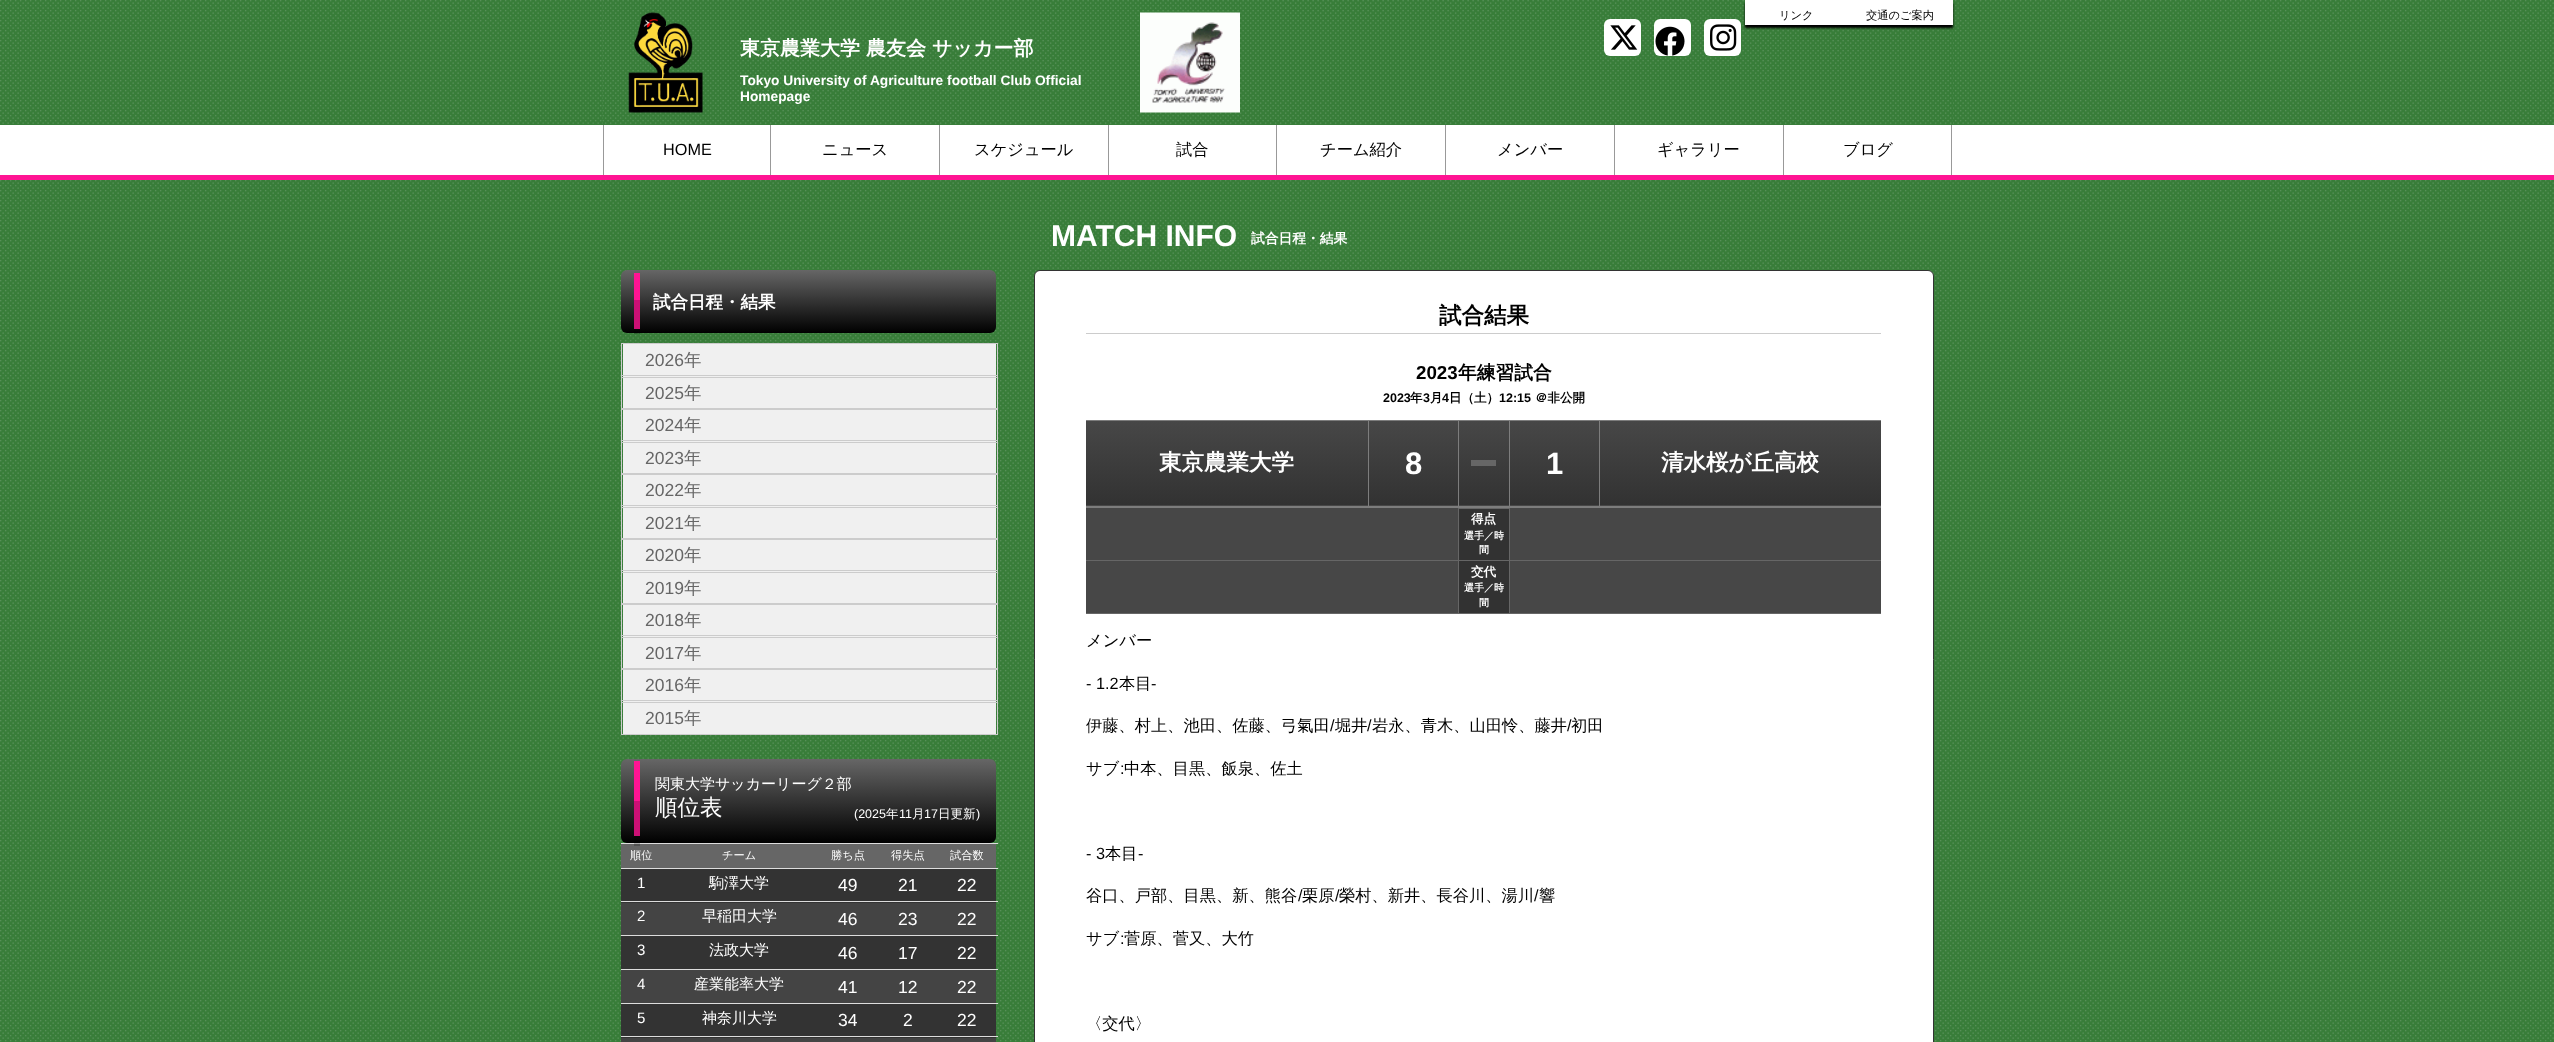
<!DOCTYPE html>
<meta charset="utf-8">
<style>body { margin: 0 } canvas { display: block }</style>
<canvas id="canvas" width="2554" height="1042"></canvas>
<img id="img1" src="img_01.png" hidden>
<img id="img2" src="img_02.png" hidden>
<img id="img3" src="img_03.png" hidden>
<img id="img4" src="img_04.png" hidden>
<img id="img5" src="img_05.png" hidden>
<img id="img6" src="img_06.png" hidden>
<img id="img7" src="img_07.png" hidden>
<script>
window.onload = function () {
	const canvas = document.getElementById("canvas");
	const ctx = canvas.getContext("2d");
	ctx.miterLimit = 4;
	ctx.fontKerning = "normal";
	function txt(s, x, y) {
		ctx.fillText(s, x, y);
	}
	function fill(x, y, w, h) {
		ctx.fillRect(x, y, w, h);
	}
	function round(x, y, w, h, r) {
		ctx.beginPath();
		ctx.roundRect(x, y, w, h, r);
		ctx.fill();
	}
	function img(id, x, y, w, h) {
		ctx.drawImage(document.getElementById(id), x, y, w, h);
	}
	let gradient;

	ctx.fillStyle = "#387D39";
	fill(0, 0, 2554, 1042);
	img("img1", 0, 0, 2554, 1042);
	fill(603, 0, 1350, 124);
	img("img2", 602, 0, 1351, 124);
	ctx.fillStyle = "#000000";
	ctx.filter = "blur(1px)";
	ctx.beginPath();
	ctx.rect(1745, 3, 208, 25);
	ctx.fill();
	ctx.filter = "none";
	ctx.fillStyle = "#FFFFFF";
	fill(1745, 0, 208, 25);
	img("img3", 628, 12, 75, 101);
	img("img4", 1140, 12, 100, 101);
	round(1604, 19, 37, 37, 6);
	img("img5", 1610, 25, 28, 25);
	round(1654, 19, 37, 37, 6);
	img("img6", 1655, 26, 30, 30);
	round(1704, 19, 37, 37, 6);
	img("img7", 1710, 24, 27, 27);
	fill(0, 125, 2554, 50);
	ctx.fillStyle = "#999999";
	fill(770, 125, 1, 50);
	fill(603, 125, 1, 50);
	fill(939, 125, 1, 50);
	fill(1108, 125, 1, 50);
	fill(1276, 125, 1, 50);
	fill(1445, 125, 1, 50);
	fill(1614, 125, 1, 50);
	fill(1783, 125, 1, 50);
	fill(1951, 125, 1, 50);
	ctx.fillStyle = "#FF1493";
	fill(0, 175, 2554, 5);
	gradient = ctx.createLinearGradient(621, 270, 621, 333);
	gradient.addColorStop(0, "#666666");
	gradient.addColorStop(1, "#000000");
	ctx.fillStyle = gradient;
	round(621, 270, 375, 63, 6);
	ctx.fillStyle = "#FF1493";
	fill(634, 273, 6, 56);
	ctx.fillStyle = "rgba(0, 0, 0, 0.2)";
	fill(634, 300, 6, 34);
	ctx.fillStyle = "#F0F0F0";
	fill(623, 344, 373, 31);
	fill(623, 376, 373, 32);
	ctx.strokeStyle = "#CCCCCC";
	ctx.strokeRect(621.5, 343.5, 376, 34);
	ctx.strokeRect(621.5, 375.5, 376, 34);
	fill(623, 410, 373, 30);
	fill(623, 441, 373, 32);
	ctx.strokeRect(621.5, 408.5, 376, 34);
	ctx.strokeRect(621.5, 440.5, 376, 34);
	fill(623, 475, 373, 30);
	fill(623, 506, 373, 32);
	ctx.strokeRect(621.5, 473.5, 376, 34);
	ctx.strokeRect(621.5, 505.5, 376, 34);
	fill(623, 540, 373, 30);
	fill(623, 571, 373, 32);
	ctx.strokeRect(621.5, 538.5, 376, 34);
	ctx.strokeRect(621.5, 570.5, 376, 34);
	fill(623, 605, 373, 30);
	fill(623, 636, 373, 32);
	ctx.strokeRect(621.5, 603.5, 376, 34);
	ctx.strokeRect(621.5, 635.5, 376, 34);
	fill(623, 670, 373, 30);
	fill(623, 701, 373, 33);
	ctx.strokeRect(621.5, 668.5, 376, 34);
	ctx.strokeRect(621.5, 700.5, 376, 34);
	gradient = ctx.createLinearGradient(809, 759, 809, 843);
	gradient.addColorStop(0, "#666666");
	gradient.addColorStop(1, "#000000");
	ctx.fillStyle = gradient;
	round(621, 759, 375, 84, 6);
	ctx.fillStyle = "#FF1493";
	fill(634, 761, 6, 75);
	ctx.fillStyle = "#666666";
	fill(621, 844, 375, 24);
	ctx.fillStyle = "#DDDDDD";
	fill(621, 843, 377, 1);
	ctx.fillStyle = "rgba(0, 0, 0, 0.2)";
	fill(634, 801, 6, 45);
	ctx.fillStyle = "#333333";
	fill(621, 869, 375, 34);
	ctx.fillStyle = "#DDDDDD";
	fill(621, 868, 377, 1);
	ctx.fillStyle = "#444444";
	fill(621, 903, 375, 32);
	ctx.fillStyle = "#DDDDDD";
	fill(621, 901, 377, 1);
	ctx.fillStyle = "#333333";
	fill(621, 936, 375, 33);
	ctx.fillStyle = "#DDDDDD";
	fill(621, 935, 377, 1);
	ctx.fillStyle = "#444444";
	fill(621, 970, 375, 33);
	ctx.fillStyle = "#DDDDDD";
	fill(621, 969, 377, 1);
	ctx.fillStyle = "#333333";
	fill(621, 1004, 375, 34);
	ctx.fillStyle = "#DDDDDD";
	fill(621, 1003, 377, 1);
	ctx.fillStyle = "#444444";
	fill(621, 1038, 375, 4);
	ctx.fillStyle = "#DDDDDD";
	fill(621, 1036, 377, 1);
	ctx.fillStyle = "#FFFFFF";
	ctx.beginPath();
	ctx.roundRect(1034.5, 270.5, 899, 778, 5.5);
	ctx.fill();
	ctx.strokeStyle = "#333333";
	ctx.stroke();
	ctx.fillStyle = "#CCCCCC";
	fill(1086, 333, 795, 1);
	ctx.fillStyle = "#7D7D7D";
	fill(1086, 506, 795, 2);
	gradient = ctx.createLinearGradient(1086, 421, 1086, 505);
	gradient.addColorStop(0, "#474747");
	gradient.addColorStop(1, "#323232");
	ctx.fillStyle = gradient;
	fill(1086, 421, 282, 84);
	gradient = ctx.createLinearGradient(1086, 505, 1086, 589);
	gradient.addColorStop(0, "#474747");
	gradient.addColorStop(1, "#323232");
	ctx.fillStyle = gradient;
	fill(1086, 505, 283, 1);
	gradient = ctx.createLinearGradient(1510, 505, 1510, 589);
	gradient.addColorStop(0, "#474747");
	gradient.addColorStop(1, "#323232");
	ctx.fillStyle = gradient;
	fill(1509, 505, 90, 1);
	ctx.fillStyle = "#7D7D7D";
	fill(1509, 420, 372, 1);
	fill(1509, 420, 1, 88);
	fill(1458, 420, 52, 1);
	gradient = ctx.createLinearGradient(1459, 505, 1459, 589);
	gradient.addColorStop(0, "#474747");
	gradient.addColorStop(1, "#323232");
	ctx.fillStyle = gradient;
	fill(1458, 505, 51, 1);
	ctx.fillStyle = "#7D7D7D";
	fill(1458, 420, 1, 88);
	fill(1368, 420, 91, 1);
	fill(1368, 420, 1, 88);
	fill(1086, 420, 283, 1);
	gradient = ctx.createLinearGradient(1370, 421, 1370, 505);
	gradient.addColorStop(0, "#474747");
	gradient.addColorStop(1, "#323232");
	ctx.fillStyle = gradient;
	fill(1369, 421, 89, 84);
	gradient = ctx.createLinearGradient(1370, 505, 1370, 589);
	gradient.addColorStop(0, "#474747");
	gradient.addColorStop(1, "#323232");
	ctx.fillStyle = gradient;
	fill(1369, 505, 89, 1);
	gradient = ctx.createLinearGradient(1459, 421, 1459, 505);
	gradient.addColorStop(0, "#474747");
	gradient.addColorStop(1, "#323232");
	ctx.fillStyle = gradient;
	fill(1459, 421, 50, 84);
	ctx.fillStyle = "#666666";
	fill(1471, 460, 25, 6);
	gradient = ctx.createLinearGradient(1510, 421, 1510, 505);
	gradient.addColorStop(0, "#474747");
	gradient.addColorStop(1, "#323232");
	ctx.fillStyle = gradient;
	fill(1510, 421, 89, 84);
	gradient = ctx.createLinearGradient(1599, 505, 1599, 589);
	gradient.addColorStop(0, "#474747");
	gradient.addColorStop(1, "#323232");
	ctx.fillStyle = gradient;
	fill(1599, 505, 282, 1);
	ctx.fillStyle = "#7D7D7D";
	fill(1599, 420, 1, 88);
	gradient = ctx.createLinearGradient(1599, 421, 1599, 505);
	gradient.addColorStop(0, "#474747");
	gradient.addColorStop(1, "#323232");
	ctx.fillStyle = gradient;
	fill(1600, 421, 281, 84);
	ctx.fillStyle = "#474747";
	fill(1086, 508, 795, 105);
	ctx.fillStyle = "#323232";
	fill(1459, 509, 50, 51);
	ctx.fillStyle = "#666666";
	fill(1458, 508, 52, 1);
	fill(1458, 560, 52, 1);
	fill(1509, 613, 372, 1);
	fill(1509, 560, 1, 54);
	fill(1509, 560, 372, 1);
	fill(1509, 508, 1, 53);
	fill(1458, 613, 52, 1);
	fill(1458, 560, 1, 54);
	fill(1458, 508, 1, 53);
	fill(1086, 560, 373, 1);
	ctx.fillStyle = "#323232";
	fill(1459, 561, 50, 52);
	ctx.fillStyle = "#666666";
	fill(1086, 613, 373, 1);
	ctx.font = "500 11.25px WenQuanYi Zen Hei";
	ctx.fillStyle = "#000000";
	txt("リンク", 1779, 19);
	txt("交通のご案内", 1866, 19);
	ctx.font = "bold 20px WenQuanYi Zen Hei";
	ctx.fillStyle = "#FFFFFF";
	txt("東京農業大学 農友会 サッカー部", 740, 55);
	ctx.font = "bold 13.75px Liberation Sans";
	txt("Tokyo University of Agriculture football Club Official", 740, 85);
	txt("Homepage", 740, 101);
	ctx.font = "16.25px Liberation Sans";
	ctx.fillStyle = "#000000";
	txt("HOME", 663, 155);
	ctx.font = "500 16.25px WenQuanYi Zen Hei";
	txt("ニュース", 822, 155);
	txt("スケジュール", 974, 155);
	txt("試合", 1176, 155);
	txt("チーム紹介", 1320, 155);
	txt("メンバー", 1497, 155);
	txt("ギャラリー", 1657, 155);
	txt("ブログ", 1843, 155);
	ctx.font = "bold 17.5px WenQuanYi Zen Hei";
	ctx.fillStyle = "#FFFFFF";
	txt("試合日程・結果", 653, 308);
	ctx.font = "17.5px Liberation Sans";
	ctx.fillStyle = "#666666";
	txt("2026", 645, 366);
	ctx.font = "500 17.5px WenQuanYi Zen Hei";
	txt("年", 684, 366);
	ctx.font = "17.5px Liberation Sans";
	txt("2025", 645, 399);
	ctx.font = "500 17.5px WenQuanYi Zen Hei";
	txt("年", 684, 399);
	ctx.font = "17.5px Liberation Sans";
	txt("2024", 645, 431);
	ctx.font = "500 17.5px WenQuanYi Zen Hei";
	txt("年", 684, 431);
	ctx.font = "17.5px Liberation Sans";
	txt("2023", 645, 464);
	ctx.font = "500 17.5px WenQuanYi Zen Hei";
	txt("年", 684, 464);
	ctx.font = "17.5px Liberation Sans";
	txt("2022", 645, 496);
	ctx.font = "500 17.5px WenQuanYi Zen Hei";
	txt("年", 684, 496);
	ctx.font = "17.5px Liberation Sans";
	txt("2021", 645, 529);
	ctx.font = "500 17.5px WenQuanYi Zen Hei";
	txt("年", 684, 529);
	ctx.font = "17.5px Liberation Sans";
	txt("2020", 645, 561);
	ctx.font = "500 17.5px WenQuanYi Zen Hei";
	txt("年", 684, 561);
	ctx.font = "17.5px Liberation Sans";
	txt("2019", 645, 594);
	ctx.font = "500 17.5px WenQuanYi Zen Hei";
	txt("年", 684, 594);
	ctx.font = "17.5px Liberation Sans";
	txt("2018", 645, 626);
	ctx.font = "500 17.5px WenQuanYi Zen Hei";
	txt("年", 684, 626);
	ctx.font = "17.5px Liberation Sans";
	txt("2017", 645, 659);
	ctx.font = "500 17.5px WenQuanYi Zen Hei";
	txt("年", 684, 659);
	ctx.font = "17.5px Liberation Sans";
	txt("2016", 645, 691);
	ctx.font = "500 17.5px WenQuanYi Zen Hei";
	txt("年", 684, 691);
	ctx.font = "17.5px Liberation Sans";
	txt("2015", 645, 724);
	ctx.font = "500 17.5px WenQuanYi Zen Hei";
	txt("年", 684, 724);
	ctx.font = "500 15px WenQuanYi Zen Hei";
	ctx.fillStyle = "#FFFFFF";
	txt("関東大学サッカーリーグ２部", 655, 789);
	ctx.font = "500 22.5px WenQuanYi Zen Hei";
	txt("順位表", 655, 815);
	ctx.font = "12.5px Liberation Sans";
	txt("(2025", 854, 818);
	ctx.font = "500 12.5px WenQuanYi Zen Hei";
	txt("年", 886, 818);
	ctx.font = "12.5px Liberation Sans";
	txt("11", 899, 818);
	ctx.font = "500 12.5px WenQuanYi Zen Hei";
	txt("月", 912, 818);
	ctx.font = "12.5px Liberation Sans";
	txt("17", 924, 818);
	ctx.font = "500 12.5px WenQuanYi Zen Hei";
	txt("日更新", 938, 818);
	ctx.font = "12.5px Liberation Sans";
	txt(")", 976, 818);
	ctx.font = "500 11.25px WenQuanYi Zen Hei";
	txt("順位", 630, 859);
	txt("チーム", 722, 859);
	txt("勝ち点", 831, 859);
	txt("得失点", 891, 859);
	txt("試合数", 950, 859);
	ctx.font = "15px Liberation Sans";
	txt("1", 637, 888);
	ctx.font = "500 15px WenQuanYi Zen Hei";
	txt("駒澤大学", 709, 888);
	ctx.font = "17.5px Liberation Sans";
	txt("49", 838, 891);
	txt("21", 898, 891);
	txt("22", 957, 891);
	ctx.font = "15px Liberation Sans";
	txt("2", 637, 921);
	ctx.font = "500 15px WenQuanYi Zen Hei";
	txt("早稲田大学", 702, 921);
	ctx.font = "17.5px Liberation Sans";
	txt("46", 838, 925);
	txt("23", 898, 925);
	txt("22", 957, 925);
	ctx.font = "15px Liberation Sans";
	txt("3", 637, 955);
	ctx.font = "500 15px WenQuanYi Zen Hei";
	txt("法政大学", 709, 955);
	ctx.font = "17.5px Liberation Sans";
	txt("46", 838, 959);
	txt("17", 898, 959);
	txt("22", 957, 959);
	ctx.font = "15px Liberation Sans";
	txt("4", 637, 989);
	ctx.font = "500 15px WenQuanYi Zen Hei";
	txt("産業能率大学", 694, 989);
	ctx.font = "17.5px Liberation Sans";
	txt("41", 838, 993);
	txt("12", 898, 993);
	txt("22", 957, 993);
	ctx.font = "15px Liberation Sans";
	txt("5", 637, 1023);
	ctx.font = "500 15px WenQuanYi Zen Hei";
	txt("神奈川大学", 702, 1023);
	ctx.font = "17.5px Liberation Sans";
	txt("34", 838, 1026);
	txt("2", 903, 1026);
	txt("22", 957, 1026);
	ctx.font = "bold 30px Liberation Sans";
	txt("MATCH INFO", 1051, 246);
	ctx.font = "bold 13.75px WenQuanYi Zen Hei";
	txt("試合日程・結果", 1251, 243);
	ctx.font = "bold 22.5px WenQuanYi Zen Hei";
	ctx.fillStyle = "#000000";
	txt("試合結果", 1439, 323);
	ctx.font = "bold 18.75px Liberation Sans";
	txt("2023", 1416, 379);
	ctx.font = "bold 18.75px WenQuanYi Zen Hei";
	txt("年練習試合", 1458, 379);
	ctx.font = "bold 12.5px Liberation Sans";
	txt("2023", 1383, 402);
	ctx.font = "bold 12.5px WenQuanYi Zen Hei";
	txt("年", 1410, 402);
	ctx.font = "bold 12.5px Liberation Sans";
	txt("3", 1423, 402);
	ctx.font = "bold 12.5px WenQuanYi Zen Hei";
	txt("月", 1430, 402);
	ctx.font = "bold 12.5px Liberation Sans";
	txt("4", 1442, 402);
	ctx.font = "bold 12.5px WenQuanYi Zen Hei";
	txt("日（土）", 1449, 402);
	ctx.font = "bold 12.5px Liberation Sans";
	txt("12:15", 1499, 402);
	ctx.font = "bold 12.5px WenQuanYi Zen Hei";
	txt("＠非公開", 1535, 402);
	ctx.font = "bold 22.5px WenQuanYi Zen Hei";
	ctx.fillStyle = "#FFFFFF";
	txt("東京農業大学", 1159, 470);
	ctx.font = "bold 31px Liberation Sans";
	txt("8", 1405, 474);
	txt("1", 1546, 474);
	ctx.font = "bold 22.5px WenQuanYi Zen Hei";
	txt("清水桜が丘高校", 1661, 470);
	ctx.font = "bold 12.5px WenQuanYi Zen Hei";
	txt("得点", 1471, 523);
	ctx.font = "bold 10px WenQuanYi Zen Hei";
	txt("選手／時", 1464, 539);
	txt("間", 1479, 553);
	ctx.font = "bold 12.5px WenQuanYi Zen Hei";
	txt("交代", 1471, 576);
	ctx.font = "bold 10px WenQuanYi Zen Hei";
	txt("選手／時", 1464, 591);
	txt("間", 1479, 606);
	ctx.font = "500 16.25px WenQuanYi Zen Hei";
	ctx.fillStyle = "#000000";
	txt("メンバー", 1086, 646);
	ctx.font = "16.25px Liberation Sans";
	txt("- 1.2", 1086, 689);
	ctx.font = "500 16.25px WenQuanYi Zen Hei";
	txt("本目", 1119, 689);
	ctx.font = "16.25px Liberation Sans";
	txt("-", 1151, 689);
	ctx.font = "500 16.25px WenQuanYi Zen Hei";
	txt("伊藤、村上、池田、佐藤、弓氣田", 1086, 731);
	ctx.font = "16.25px Liberation Sans";
	txt("/", 1330, 731);
	ctx.font = "500 16.25px WenQuanYi Zen Hei";
	txt("堀井", 1335, 731);
	ctx.font = "16.25px Liberation Sans";
	txt("/", 1367, 731);
	ctx.font = "500 16.25px WenQuanYi Zen Hei";
	txt("岩永、青木、山田怜、藤井", 1372, 731);
	ctx.font = "16.25px Liberation Sans";
	txt("/", 1567, 731);
	ctx.font = "500 16.25px WenQuanYi Zen Hei";
	txt("初田", 1571, 731);
	txt("サブ", 1086, 774);
	ctx.font = "16.25px Liberation Sans";
	txt(":", 1120, 774);
	ctx.font = "500 16.25px WenQuanYi Zen Hei";
	txt("中本、目黒、飯泉、佐土", 1124, 774);
	ctx.font = "16.25px Liberation Sans";
	txt("- 3", 1086, 859);
	ctx.font = "500 16.25px WenQuanYi Zen Hei";
	txt("本目", 1105, 859);
	ctx.font = "16.25px Liberation Sans";
	txt("-", 1138, 859);
	ctx.font = "500 16.25px WenQuanYi Zen Hei";
	txt("谷口、戸部、目黒、新、熊谷", 1086, 901);
	ctx.font = "16.25px Liberation Sans";
	txt("/", 1298, 901);
	ctx.font = "500 16.25px WenQuanYi Zen Hei";
	txt("栗原", 1302, 901);
	ctx.font = "16.25px Liberation Sans";
	txt("/", 1335, 901);
	ctx.font = "500 16.25px WenQuanYi Zen Hei";
	txt("榮村、新井、長谷川、湯川", 1339, 901);
	ctx.font = "16.25px Liberation Sans";
	txt("/", 1534, 901);
	ctx.font = "500 16.25px WenQuanYi Zen Hei";
	txt("響", 1539, 901);
	txt("サブ", 1086, 944);
	ctx.font = "16.25px Liberation Sans";
	txt(":", 1120, 944);
	ctx.font = "500 16.25px WenQuanYi Zen Hei";
	txt("菅原、菅又、大竹", 1124, 944);
	txt("〈交代〉", 1086, 1029);
};
</script>
